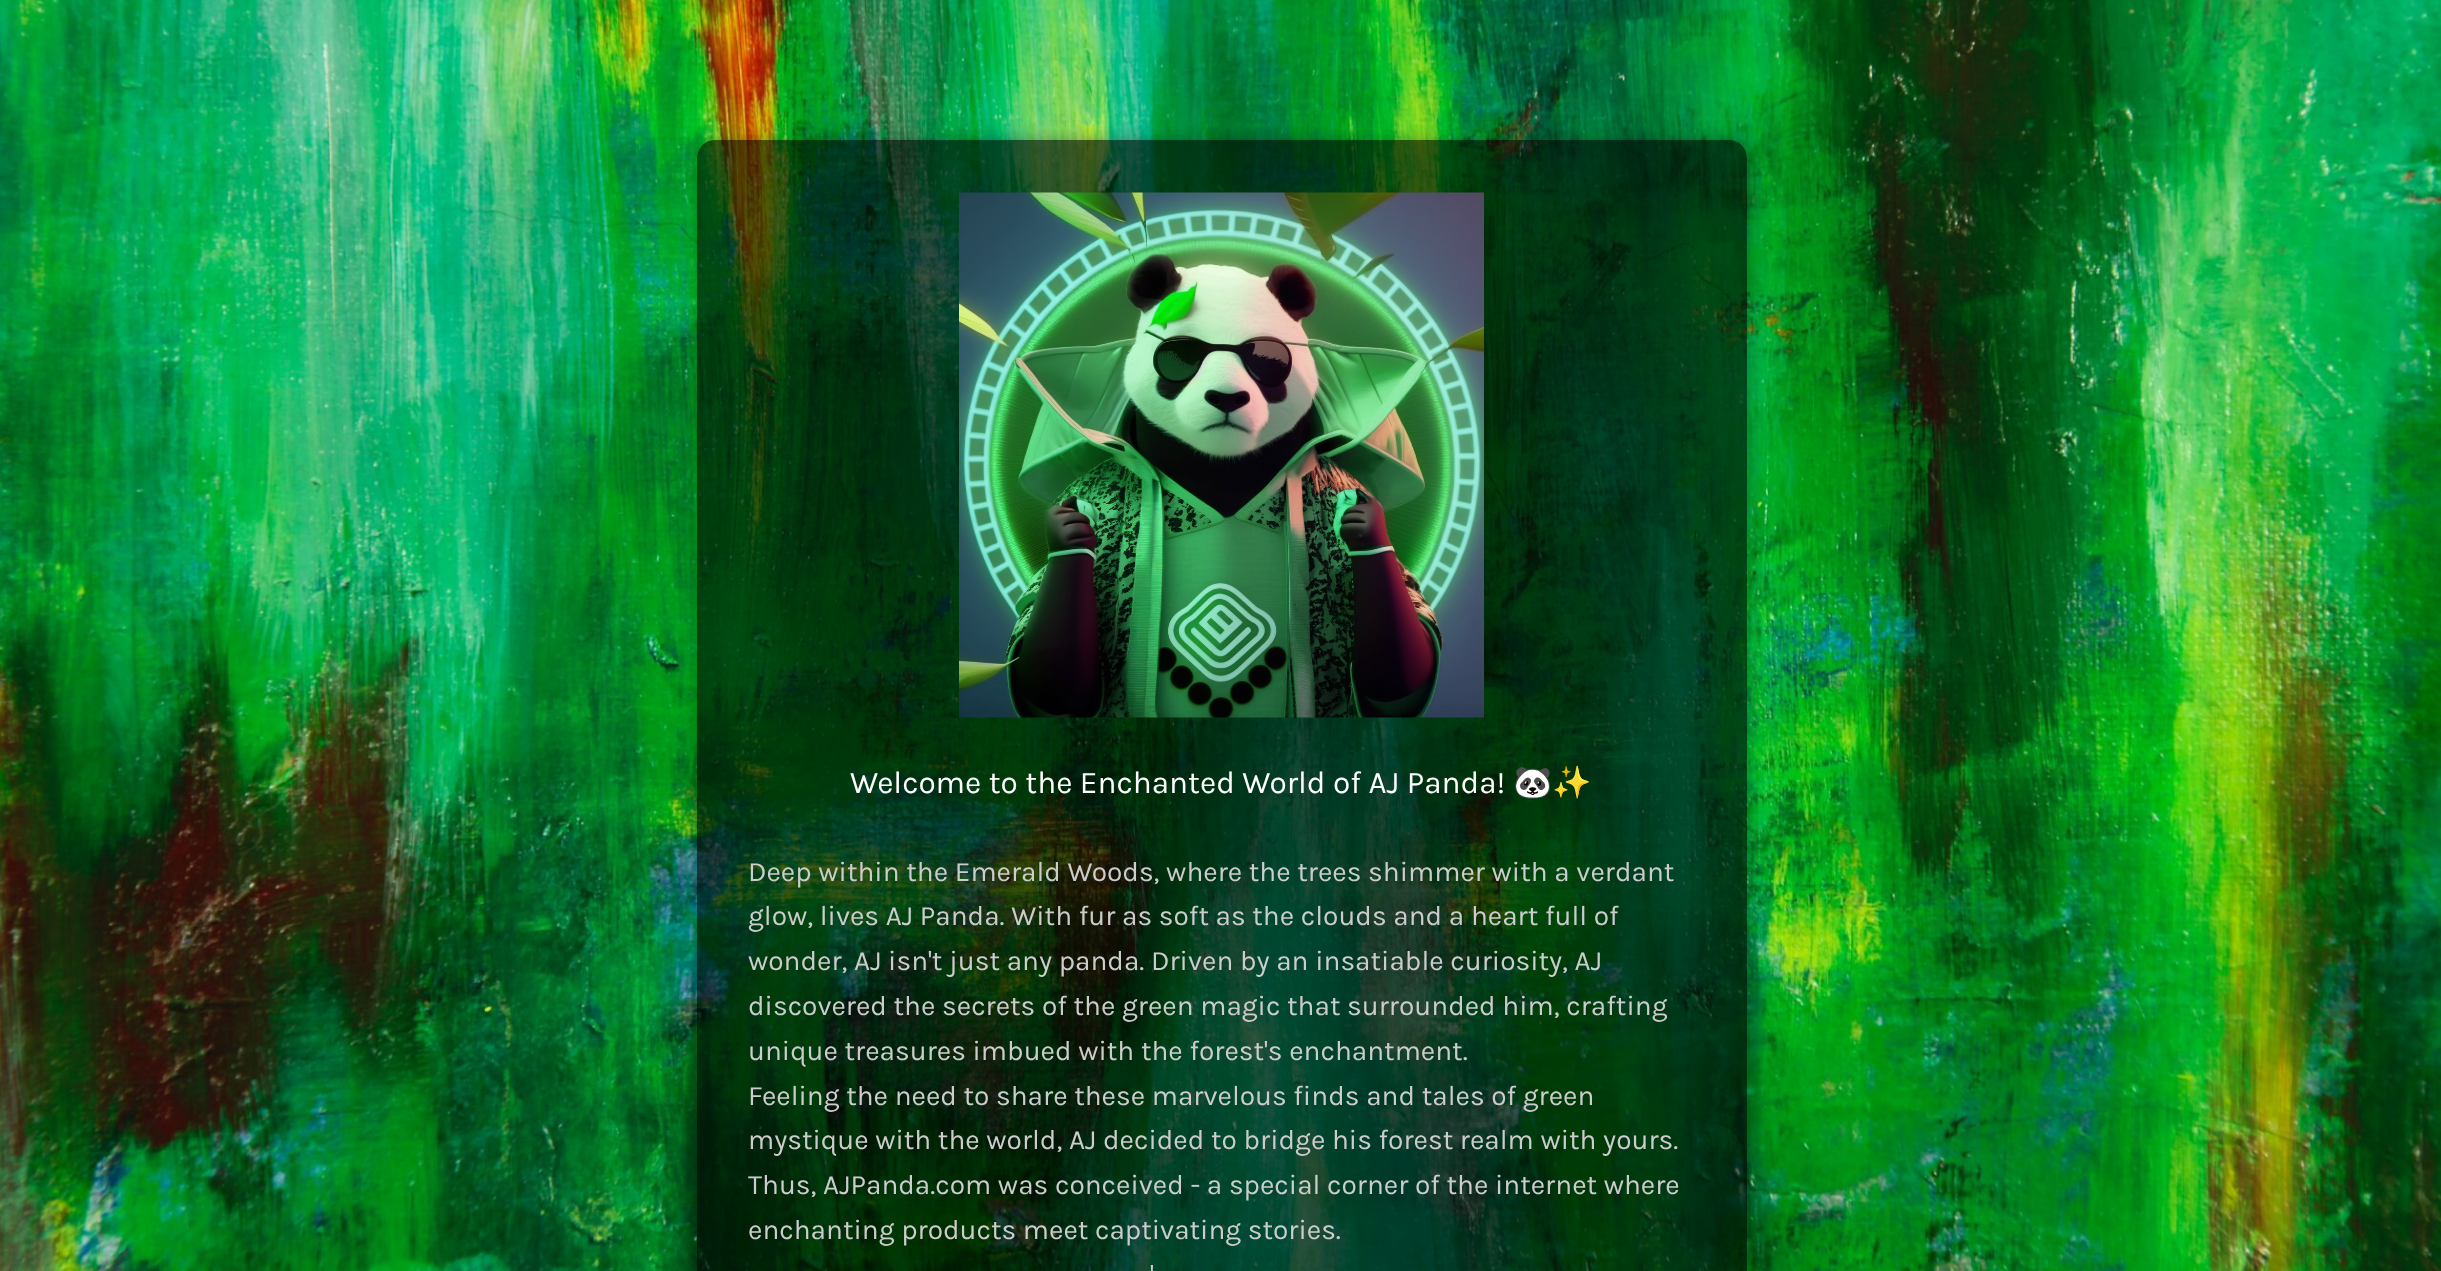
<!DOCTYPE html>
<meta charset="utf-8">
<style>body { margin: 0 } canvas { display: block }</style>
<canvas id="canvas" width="2441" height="1271"></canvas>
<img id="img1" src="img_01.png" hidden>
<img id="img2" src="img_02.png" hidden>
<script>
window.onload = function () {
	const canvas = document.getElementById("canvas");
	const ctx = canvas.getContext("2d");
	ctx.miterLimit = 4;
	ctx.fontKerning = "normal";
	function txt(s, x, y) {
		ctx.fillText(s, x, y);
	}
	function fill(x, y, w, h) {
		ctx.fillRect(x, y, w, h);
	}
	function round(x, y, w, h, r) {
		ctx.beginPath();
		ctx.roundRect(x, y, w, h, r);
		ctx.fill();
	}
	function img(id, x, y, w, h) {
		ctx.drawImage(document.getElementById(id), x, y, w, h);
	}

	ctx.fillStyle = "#FFFFFF";
	fill(0, 0, 2441, 1271);
	img("img1", 0, 0, 2441, 1271);
	ctx.save();
	ctx.beginPath();
	ctx.moveTo(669, 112);
	ctx.lineTo(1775, 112);
	ctx.lineTo(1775, 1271);
	ctx.lineTo(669, 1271);
	ctx.closePath();
	ctx.moveTo(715, 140);
	ctx.lineTo(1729, 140);
	ctx.bezierCurveTo(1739, 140, 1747, 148, 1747, 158);
	ctx.lineTo(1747, 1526);
	ctx.bezierCurveTo(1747, 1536, 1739, 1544, 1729, 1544);
	ctx.lineTo(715, 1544);
	ctx.bezierCurveTo(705, 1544, 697, 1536, 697, 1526);
	ctx.lineTo(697, 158);
	ctx.bezierCurveTo(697, 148, 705, 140, 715, 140);
	ctx.closePath();
	ctx.clip("evenodd");
	ctx.fillStyle = "rgba(0, 0, 0, 0.33)";
	ctx.filter = "blur(9px)";
	ctx.beginPath();
	ctx.roundRect(697, 140, 1050, 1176, 18);
	ctx.fill();
	ctx.filter = "none";
	ctx.restore();
	ctx.fillStyle = "rgba(0, 0, 0, 0.6)";
	round(697, 140, 1050, 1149, 18);
	img("img2", 959, 192, 525, 526);
	ctx.font = "31.5px Karla";
	ctx.fillStyle = "#FFFFFF";
	txt("Welcome to the Enchanted World of AJ Panda!", 850, 793);
	ctx.font = "31.5px Noto Color Emoji";
	txt("🐼✨", 1513, 793);
	ctx.font = "28px Karla";
	ctx.fillStyle = "#CCCCCC";
	txt("Deep within the Emerald Woods, where the trees shimmer with a verdant", 748, 881);
	txt("glow, lives AJ Panda. With fur as soft as the clouds and a heart full of", 748, 925);
	txt("wonder, AJ isn't just any panda. Driven by an insatiable curiosity, AJ", 748, 970);
	txt("discovered the secrets of the green magic that surrounded him, crafting", 748, 1015);
	txt("unique treasures imbued with the forest's enchantment.", 748, 1060);
	txt("Feeling the need to share these marvelous finds and tales of green", 748, 1105);
	txt("mystique with the world, AJ decided to bridge his forest realm with yours.", 748, 1149);
	txt("Thus, AJPanda.com was conceived - a special corner of the internet where", 748, 1194);
	txt("enchanting products meet captivating stories.", 748, 1239);
	txt("'", 1150, 1284);
};
</script>
